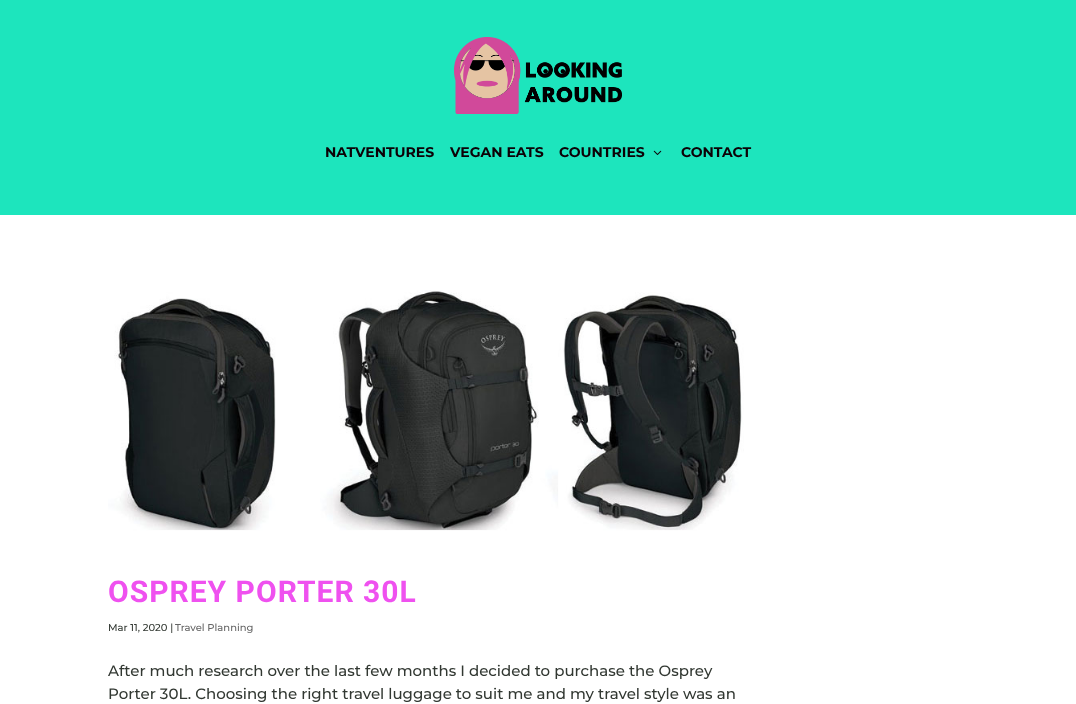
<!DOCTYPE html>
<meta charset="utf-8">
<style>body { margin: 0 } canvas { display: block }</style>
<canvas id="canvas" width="1076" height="704"></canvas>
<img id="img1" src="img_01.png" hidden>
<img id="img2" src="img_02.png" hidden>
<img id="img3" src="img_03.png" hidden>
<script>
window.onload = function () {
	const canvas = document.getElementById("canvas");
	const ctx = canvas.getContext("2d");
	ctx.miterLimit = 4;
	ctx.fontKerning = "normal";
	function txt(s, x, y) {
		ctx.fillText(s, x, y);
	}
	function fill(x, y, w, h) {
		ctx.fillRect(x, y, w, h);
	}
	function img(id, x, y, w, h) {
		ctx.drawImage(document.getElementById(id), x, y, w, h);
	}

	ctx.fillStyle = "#1DE5BD";
	fill(0, 0, 1076, 704);
	img("img1", 454, 37, 168, 77);
	img("img2", 653, 150, 9, 5);
	ctx.fillStyle = "#FFFFFF";
	fill(0, 215, 1076, 489);
	img("img3", 108, 290, 636, 241);
	ctx.font = "bold 14px Montserrat";
	ctx.fillStyle = "#0D0106";
	txt("NATVENTURES", 325, 157);
	txt("VEGAN EATS", 450, 157);
	txt("COUNTRIES", 559, 157);
	txt("CONTACT", 681, 157);
	ctx.letterSpacing = "1px";
	ctx.font = "bold 30px Roboto";
	ctx.fillStyle = "#EF51EF";
	txt("OSPREY PORTER 30L", 108, 602);
	ctx.letterSpacing = "0px";
	ctx.font = "500 10px Montserrat";
	ctx.fillStyle = "#323832";
	txt("Mar 11, 2020 |", 108, 631);
	ctx.fillStyle = "#666666";
	txt("Travel Planning", 175, 631);
	ctx.font = "500 15px Montserrat";
	ctx.fillStyle = "#323832";
	txt("After much research over the last few months I decided to purchase the Osprey", 108, 676);
	txt("Porter 30L. Choosing the right travel luggage to suit me and my travel style was an", 108, 699);
};
</script>
